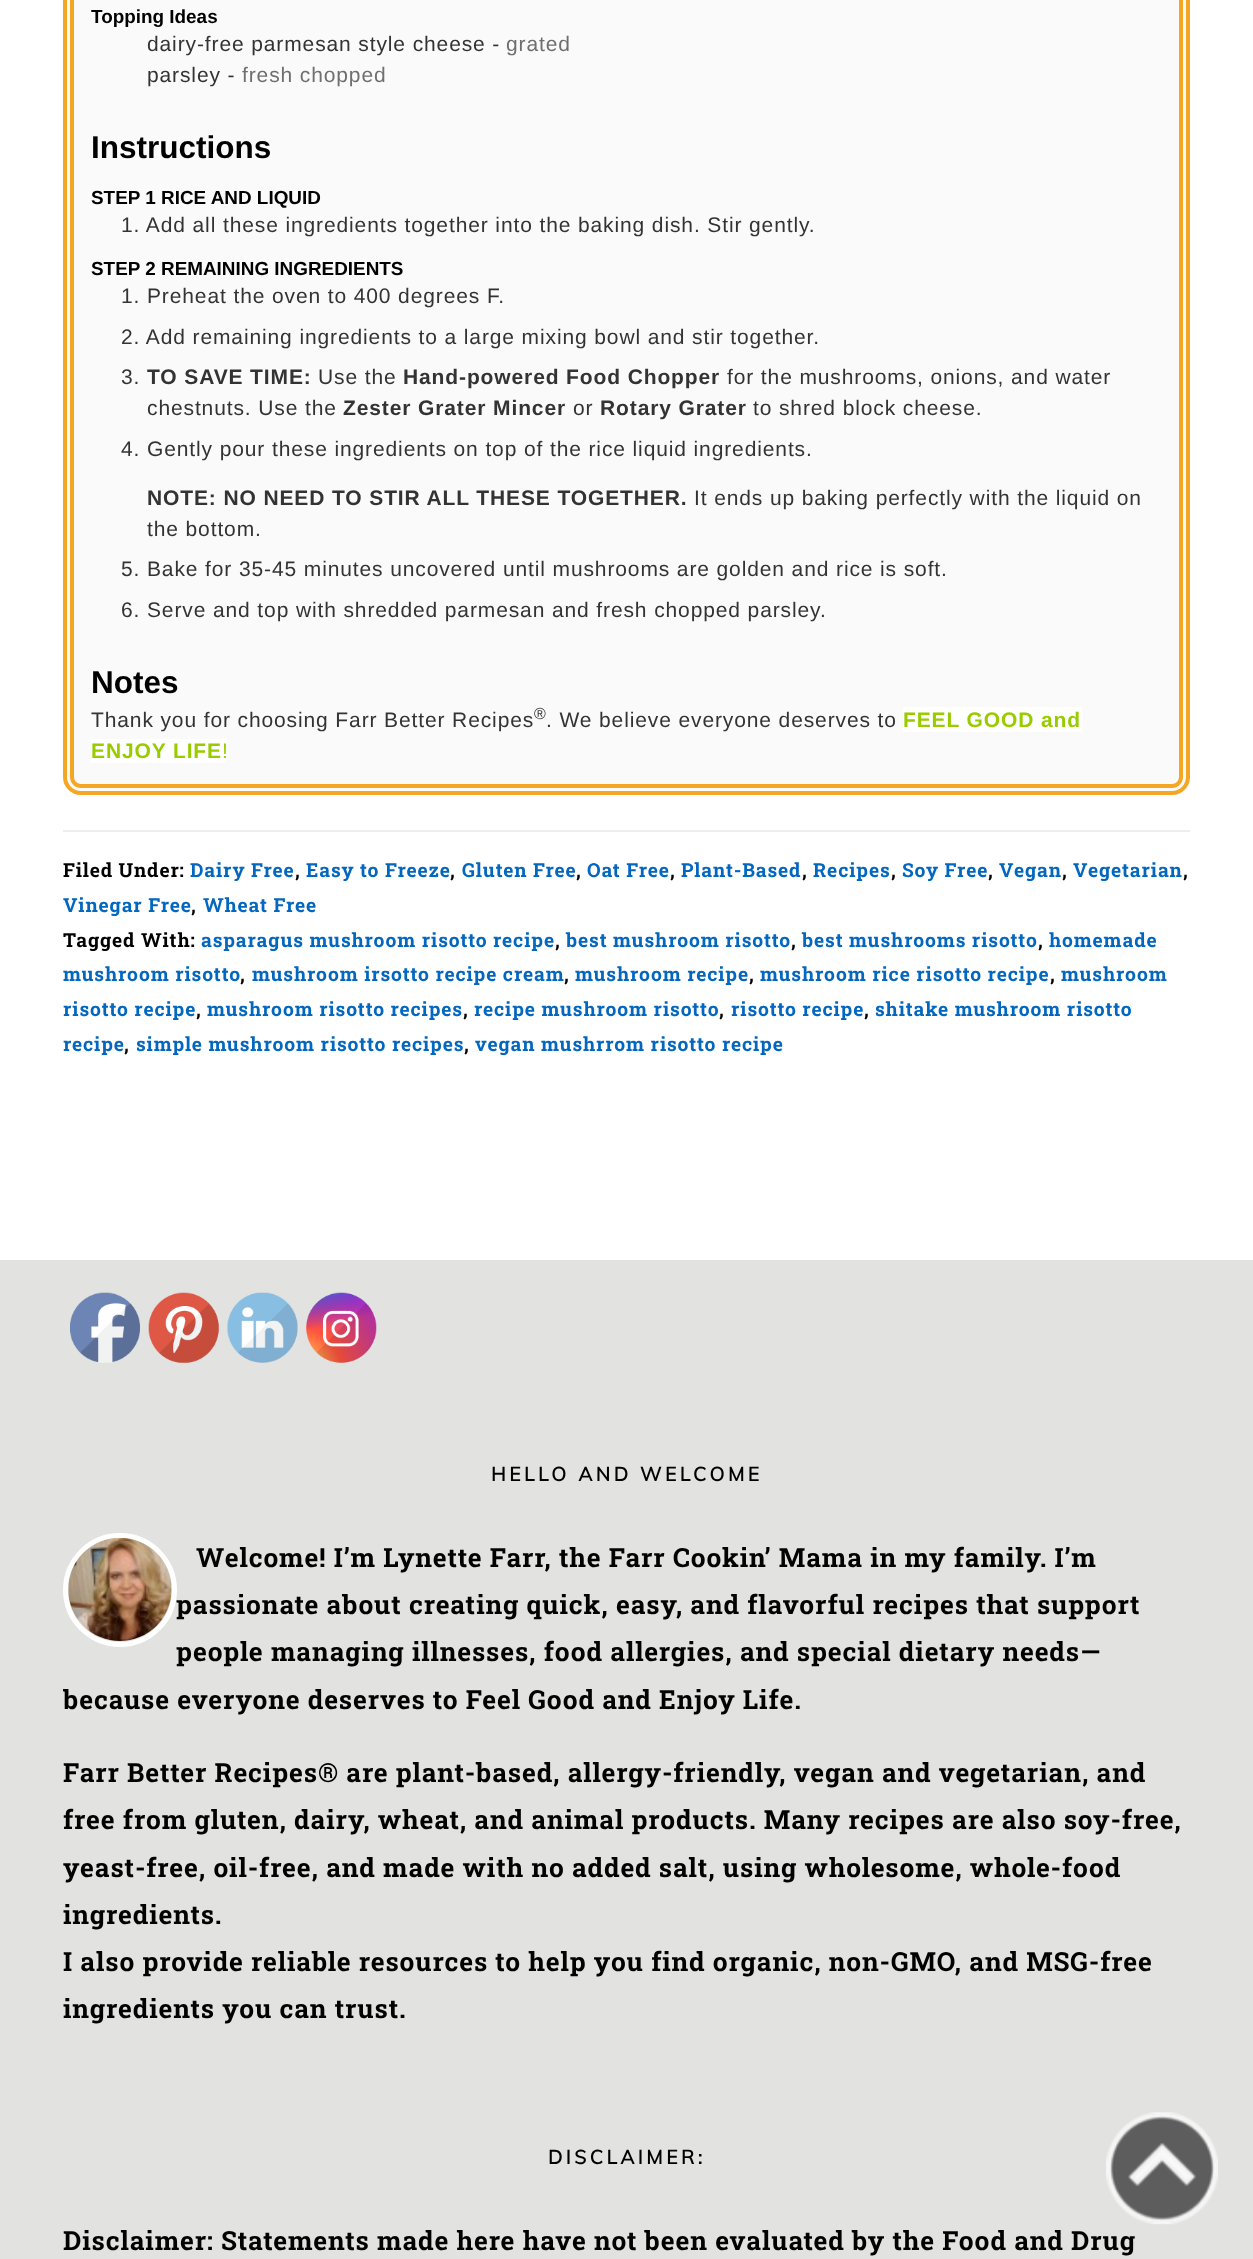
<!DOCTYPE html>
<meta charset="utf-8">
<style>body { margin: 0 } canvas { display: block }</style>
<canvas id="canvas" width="1253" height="2259"></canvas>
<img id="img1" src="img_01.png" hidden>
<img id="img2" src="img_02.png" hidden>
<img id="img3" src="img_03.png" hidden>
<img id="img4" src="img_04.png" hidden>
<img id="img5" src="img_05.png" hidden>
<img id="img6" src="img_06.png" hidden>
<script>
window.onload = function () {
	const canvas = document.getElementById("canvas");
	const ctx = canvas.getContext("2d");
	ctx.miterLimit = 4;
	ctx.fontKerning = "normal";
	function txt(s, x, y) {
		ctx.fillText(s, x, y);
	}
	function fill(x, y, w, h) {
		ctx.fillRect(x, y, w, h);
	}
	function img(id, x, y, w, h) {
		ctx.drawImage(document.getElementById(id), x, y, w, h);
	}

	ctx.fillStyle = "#FFFFFF";
	fill(0, 0, 1253, 2259);
	ctx.fillStyle = "#FAFAFA";
	ctx.beginPath();
	ctx.roundRect(65, -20, 1123, 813, 16);
	ctx.fill();
	ctx.strokeStyle = "#F5A623";
	ctx.lineWidth = 4;
	ctx.stroke();
	ctx.beginPath();
	ctx.roundRect(72, -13, 1109, 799, 9);
	ctx.stroke();
	ctx.fillStyle = "#FFFFFF";
	fill(903, 707, 179, 25);
	fill(91, 739, 136, 24);
	ctx.fillStyle = "#EEEEEE";
	fill(63, 830, 1127, 2);
	ctx.fillStyle = "#E2E2E0";
	fill(0, 1260, 1253, 999);
	img("img1", 70, 1292, 70, 71);
	img("img2", 148, 1292, 71, 71);
	img("img3", 227, 1292, 71, 71);
	img("img4", 306, 1292, 71, 71);
	ctx.beginPath();
	ctx.arc(120, 1590, 54.5, 0, Math.PI * 2);
	ctx.strokeStyle = "#FFFFFF";
	ctx.lineWidth = 5;
	ctx.stroke();
	img("img5", 68, 1537, 104, 104);
	img("img6", 1106, 2112, 112, 113);
	ctx.font = "bold 18.9px Liberation Sans";
	ctx.fillStyle = "#010101";
	txt("Topping Ideas", 91, 23);
	ctx.letterSpacing = "0.88px";
	ctx.font = "21px Liberation Sans";
	ctx.fillStyle = "#333333";
	txt("dairy-free parmesan style cheese -", 147, 51);
	ctx.fillStyle = "#6F6F6F";
	txt("grated", 506, 51);
	ctx.fillStyle = "#333333";
	txt("parsley -", 147, 82);
	ctx.fillStyle = "#6F6F6F";
	txt("fresh chopped", 242, 82);
	ctx.letterSpacing = "0px";
	ctx.font = "bold 31.5px Liberation Sans";
	ctx.fillStyle = "#010101";
	txt("Instructions", 91, 158);
	ctx.font = "bold 18.9px Liberation Sans";
	txt("STEP 1 RICE AND LIQUID", 91, 204);
	ctx.letterSpacing = "0.88px";
	ctx.font = "21px Liberation Sans";
	ctx.fillStyle = "#333333";
	txt("1. Add all these ingredients together into the baking dish. Stir gently.", 121, 232);
	ctx.letterSpacing = "0px";
	ctx.font = "bold 18.9px Liberation Sans";
	ctx.fillStyle = "#010101";
	txt("STEP 2 REMAINING INGREDIENTS", 91, 275);
	ctx.letterSpacing = "0.88px";
	ctx.font = "21px Liberation Sans";
	ctx.fillStyle = "#333333";
	txt("1. Preheat the oven to 400 degrees F.", 121, 303);
	txt("2. Add remaining ingredients to a large mixing bowl and stir together.", 121, 344);
	txt("3.", 121, 384);
	ctx.font = "bold 21px Liberation Sans";
	txt("TO SAVE TIME:", 147, 384);
	ctx.font = "21px Liberation Sans";
	txt("Use the", 318, 384);
	ctx.font = "bold 21px Liberation Sans";
	txt("Hand-powered Food Chopper", 403, 384);
	ctx.font = "21px Liberation Sans";
	txt("for the mushrooms, onions, and water", 727, 384);
	txt("chestnuts. Use the", 147, 415);
	ctx.font = "bold 21px Liberation Sans";
	txt("Zester Grater Mincer", 343, 415);
	ctx.font = "21px Liberation Sans";
	txt("or", 573, 415);
	ctx.font = "bold 21px Liberation Sans";
	txt("Rotary Grater", 600, 415);
	ctx.font = "21px Liberation Sans";
	txt("to shred block cheese.", 753, 415);
	txt("4. Gently pour these ingredients on top of the rice liquid ingredients.", 121, 456);
	ctx.font = "bold 21px Liberation Sans";
	txt("NOTE: NO NEED TO STIR ALL THESE TOGETHER.", 147, 505);
	ctx.font = "21px Liberation Sans";
	txt("It ends up baking perfectly with the liquid on", 694, 505);
	txt("the bottom.", 147, 536);
	txt("5. Bake for 35-45 minutes uncovered until mushrooms are golden and rice is soft.", 121, 576);
	txt("6. Serve and top with shredded parmesan and fresh chopped parsley.", 121, 617);
	ctx.letterSpacing = "0px";
	ctx.font = "bold 31.5px Liberation Sans";
	ctx.fillStyle = "#010101";
	txt("Notes", 91, 693);
	ctx.letterSpacing = "0.88px";
	ctx.font = "21px Liberation Sans";
	ctx.fillStyle = "#333333";
	txt("Thank you for choosing Farr Better Recipes", 91, 727);
	ctx.font = "16px Liberation Sans";
	txt("®", 534, 719);
	ctx.font = "21px Liberation Sans";
	txt(". We believe everyone deserves to", 546, 727);
	ctx.font = "bold 21px Liberation Sans";
	ctx.fillStyle = "#99CC00";
	txt("FEEL GOOD and", 903, 727);
	txt("ENJOY LIFE", 91, 758);
	ctx.font = "21px Liberation Sans";
	txt("!", 222, 758);
	ctx.font = "bold 19.25px Roboto Slab";
	ctx.fillStyle = "#010101";
	txt("Filed Under:", 63, 877);
	ctx.fillStyle = "#0367BF";
	txt("Dairy Free", 190, 877);
	ctx.fillStyle = "#010101";
	txt(",", 295, 877);
	ctx.fillStyle = "#0367BF";
	txt("Easy to Freeze", 306, 877);
	ctx.fillStyle = "#010101";
	txt(",", 450, 877);
	ctx.fillStyle = "#0367BF";
	txt("Gluten Free", 462, 877);
	ctx.fillStyle = "#010101";
	txt(",", 576, 877);
	ctx.fillStyle = "#0367BF";
	txt("Oat Free", 587, 877);
	ctx.fillStyle = "#010101";
	txt(",", 670, 877);
	ctx.fillStyle = "#0367BF";
	txt("Plant-Based", 681, 877);
	ctx.fillStyle = "#010101";
	txt(",", 802, 877);
	ctx.fillStyle = "#0367BF";
	txt("Recipes", 813, 877);
	ctx.fillStyle = "#010101";
	txt(",", 891, 877);
	ctx.fillStyle = "#0367BF";
	txt("Soy Free", 902, 877);
	ctx.fillStyle = "#010101";
	txt(",", 988, 877);
	ctx.fillStyle = "#0367BF";
	txt("Vegan", 999, 877);
	ctx.fillStyle = "#010101";
	txt(",", 1062, 877);
	ctx.fillStyle = "#0367BF";
	txt("Vegetarian", 1073, 877);
	ctx.fillStyle = "#010101";
	txt(",", 1183, 877);
	ctx.fillStyle = "#0367BF";
	txt("Vinegar Free", 63, 912);
	ctx.fillStyle = "#010101";
	txt(",", 191, 912);
	ctx.fillStyle = "#0367BF";
	txt("Wheat Free", 203, 912);
	ctx.fillStyle = "#010101";
	txt("Tagged With:", 63, 947);
	ctx.fillStyle = "#0367BF";
	txt("asparagus mushroom risotto recipe", 201, 947);
	ctx.fillStyle = "#010101";
	txt(",", 555, 947);
	ctx.fillStyle = "#0367BF";
	txt("best mushroom risotto", 566, 947);
	ctx.fillStyle = "#010101";
	txt(",", 791, 947);
	ctx.fillStyle = "#0367BF";
	txt("best mushrooms risotto", 802, 947);
	ctx.fillStyle = "#010101";
	txt(",", 1038, 947);
	ctx.fillStyle = "#0367BF";
	txt("homemade", 1049, 947);
	txt("mushroom risotto", 63, 981);
	ctx.fillStyle = "#010101";
	txt(",", 240, 981);
	ctx.fillStyle = "#0367BF";
	txt("mushroom irsotto recipe cream", 252, 981);
	ctx.fillStyle = "#010101";
	txt(",", 564, 981);
	ctx.fillStyle = "#0367BF";
	txt("mushroom recipe", 575, 981);
	ctx.fillStyle = "#010101";
	txt(",", 749, 981);
	ctx.fillStyle = "#0367BF";
	txt("mushroom rice risotto recipe", 760, 981);
	ctx.fillStyle = "#010101";
	txt(",", 1050, 981);
	ctx.fillStyle = "#0367BF";
	txt("mushroom", 1061, 981);
	txt("risotto recipe", 63, 1016);
	ctx.fillStyle = "#010101";
	txt(",", 196, 1016);
	ctx.fillStyle = "#0367BF";
	txt("mushroom risotto recipes", 207, 1016);
	ctx.fillStyle = "#010101";
	txt(",", 463, 1016);
	ctx.fillStyle = "#0367BF";
	txt("recipe mushroom risotto", 474, 1016);
	ctx.fillStyle = "#010101";
	txt(",", 719, 1016);
	ctx.fillStyle = "#0367BF";
	txt("risotto recipe", 731, 1016);
	ctx.fillStyle = "#010101";
	txt(",", 864, 1016);
	ctx.fillStyle = "#0367BF";
	txt("shitake mushroom risotto", 875, 1016);
	txt("recipe", 63, 1051);
	ctx.fillStyle = "#010101";
	txt(",", 124, 1051);
	ctx.fillStyle = "#0367BF";
	txt("simple mushroom risotto recipes", 136, 1051);
	ctx.fillStyle = "#010101";
	txt(",", 464, 1051);
	ctx.fillStyle = "#0367BF";
	txt("vegan mushrrom risotto recipe", 475, 1051);
	ctx.letterSpacing = "3.5px";
	ctx.font = "bold 19.25px Muli";
	ctx.fillStyle = "#010101";
	txt("HELLO AND WELCOME", 491, 1481);
	ctx.letterSpacing = "0.88px";
	ctx.font = "bold 26.25px Roboto Slab";
	txt("Welcome! I’m Lynette Farr, the Farr Cookin’ Mama in my family. I’m", 196, 1567);
	txt("passionate about creating quick, easy, and flavorful recipes that support", 176, 1614);
	txt("people managing illnesses, food allergies, and special dietary needs—", 176, 1661);
	ctx.save();
	ctx.beginPath();
	ctx.rect(63, 1295, 1127, 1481);
	ctx.clip();
	txt("because everyone deserves to Feel Good and Enjoy Life.", 63, 1709);
	ctx.restore();
	txt("Farr Better Recipes® are plant-based, allergy-friendly, vegan and vegetarian, and", 63, 1782);
	txt("free from gluten, dairy, wheat, and animal products. Many recipes are also soy-free,", 63, 1829);
	txt("yeast-free, oil-free, and made with no added salt, using wholesome, whole-food", 63, 1877);
	txt("ingredients.", 63, 1924);
	txt("I also provide reliable resources to help you find organic, non-GMO, and MSG-free", 63, 1971);
	txt("ingredients you can trust.", 63, 2018);
	ctx.letterSpacing = "3.5px";
	ctx.font = "bold 19.25px Muli";
	txt("DISCLAIMER:", 548, 2164);
	ctx.letterSpacing = "0.88px";
	ctx.font = "bold 26.25px Roboto Slab";
	txt("Disclaimer: Statements made here have not been evaluated by the Food and Drug", 63, 2250);
};
</script>
